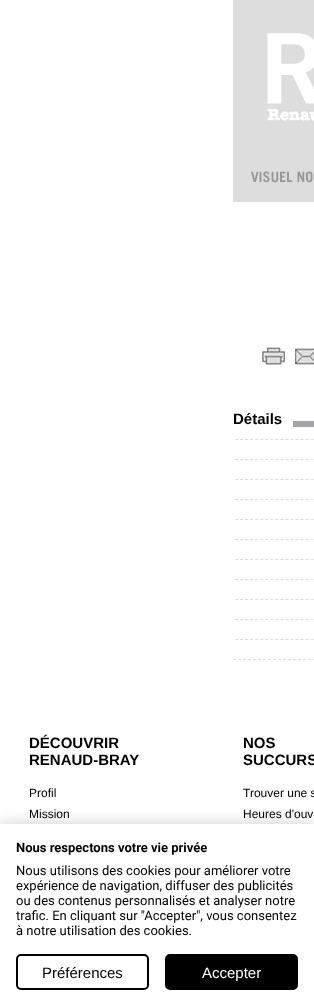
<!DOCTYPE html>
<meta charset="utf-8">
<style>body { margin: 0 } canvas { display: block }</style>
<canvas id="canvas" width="314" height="1006"></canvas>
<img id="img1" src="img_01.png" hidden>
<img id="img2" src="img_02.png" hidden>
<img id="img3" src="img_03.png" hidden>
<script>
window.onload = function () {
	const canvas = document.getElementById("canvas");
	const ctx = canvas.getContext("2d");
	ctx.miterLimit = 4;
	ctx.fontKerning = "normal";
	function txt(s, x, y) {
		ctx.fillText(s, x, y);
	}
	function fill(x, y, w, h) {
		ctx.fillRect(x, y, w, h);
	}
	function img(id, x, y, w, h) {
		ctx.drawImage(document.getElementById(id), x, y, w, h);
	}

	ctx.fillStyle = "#FFFFFF";
	fill(0, 0, 314, 1006);
	img("img1", 233, 0, 81, 202);
	img("img2", 262, 347, 23, 18);
	img("img3", 295, 348, 19, 17);
	ctx.fillStyle = "#A1A3A6";
	fill(293, 421, 21, 6);
	ctx.beginPath();
	ctx.moveTo(233, 659.5);
	ctx.lineTo(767, 659.5);
	ctx.strokeStyle = "#DDDDDD";
	ctx.setLineDash([3, 2.01]);
	ctx.stroke();
	ctx.beginPath();
	ctx.moveTo(235, 439.5);
	ctx.lineTo(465, 439.5);
	ctx.setLineDash([3, 2.04]);
	ctx.stroke();
	ctx.beginPath();
	ctx.moveTo(235, 459.5);
	ctx.lineTo(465, 459.5);
	ctx.stroke();
	ctx.beginPath();
	ctx.moveTo(235, 479.5);
	ctx.lineTo(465, 479.5);
	ctx.stroke();
	ctx.beginPath();
	ctx.moveTo(235, 499.5);
	ctx.lineTo(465, 499.5);
	ctx.stroke();
	ctx.beginPath();
	ctx.moveTo(235, 519.5);
	ctx.lineTo(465, 519.5);
	ctx.stroke();
	ctx.beginPath();
	ctx.moveTo(235, 539.5);
	ctx.lineTo(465, 539.5);
	ctx.stroke();
	ctx.beginPath();
	ctx.moveTo(235, 559.5);
	ctx.lineTo(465, 559.5);
	ctx.stroke();
	ctx.beginPath();
	ctx.moveTo(235, 579.5);
	ctx.lineTo(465, 579.5);
	ctx.stroke();
	ctx.beginPath();
	ctx.moveTo(235, 599.5);
	ctx.lineTo(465, 599.5);
	ctx.stroke();
	ctx.beginPath();
	ctx.moveTo(235, 619.5);
	ctx.lineTo(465, 619.5);
	ctx.stroke();
	ctx.beginPath();
	ctx.moveTo(235, 639.5);
	ctx.lineTo(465, 639.5);
	ctx.stroke();
	ctx.fillStyle = "rgba(0, 0, 0, 0.2)";
	ctx.filter = "blur(8px)";
	ctx.beginPath();
	ctx.rect(0, 824, 314, 182);
	ctx.fill();
	ctx.filter = "none";
	ctx.fillStyle = "#FFFFFF";
	fill(0, 824, 314, 182);
	ctx.beginPath();
	ctx.roundRect(17, 955, 131, 34, 4);
	ctx.strokeStyle = "#000000";
	ctx.lineWidth = 2;
	ctx.setLineDash([]);
	ctx.stroke();
	ctx.fillStyle = "#000000";
	ctx.beginPath();
	ctx.roundRect(166, 955, 131, 34, 4);
	ctx.fill();
	ctx.stroke();
	ctx.font = "bold 15px Liberation Sans";
	txt("Détails", 233, 424);
	ctx.font = "bold 13px Roboto";
	txt("Nous respectons votre vie privée", 16, 852);
	ctx.font = "13px Roboto";
	txt("Nous utilisons des cookies pour améliorer votre", 16, 875);
	txt("expérience de navigation, diffuser des publicités", 16, 890);
	txt("ou des contenus personnalisés et analyser notre", 16, 905);
	txt("trafic. En cliquant sur \"Accepter\", vous consentez", 16, 920);
	txt("à notre utilisation des cookies.", 16, 935);
	ctx.font = "15px Liberation Sans";
	txt("Préférences", 42, 978);
	ctx.fillStyle = "#FFFFFF";
	txt("Accepter", 202, 978);
	ctx.font = "bold 15px Liberation Sans";
	ctx.fillStyle = "#000000";
	txt("DÉCOUVRIR", 29, 748);
	txt("RENAUD-BRAY", 29, 765);
	txt("NOS", 243, 748);
	txt("SUCCURS", 243, 765);
	ctx.font = "12px Liberation Sans";
	txt("Profil", 29, 797);
	txt("Trouver une s", 243, 797);
	txt("Mission", 29, 818);
	txt("Heures d'ouv", 243, 818);
};
</script>
